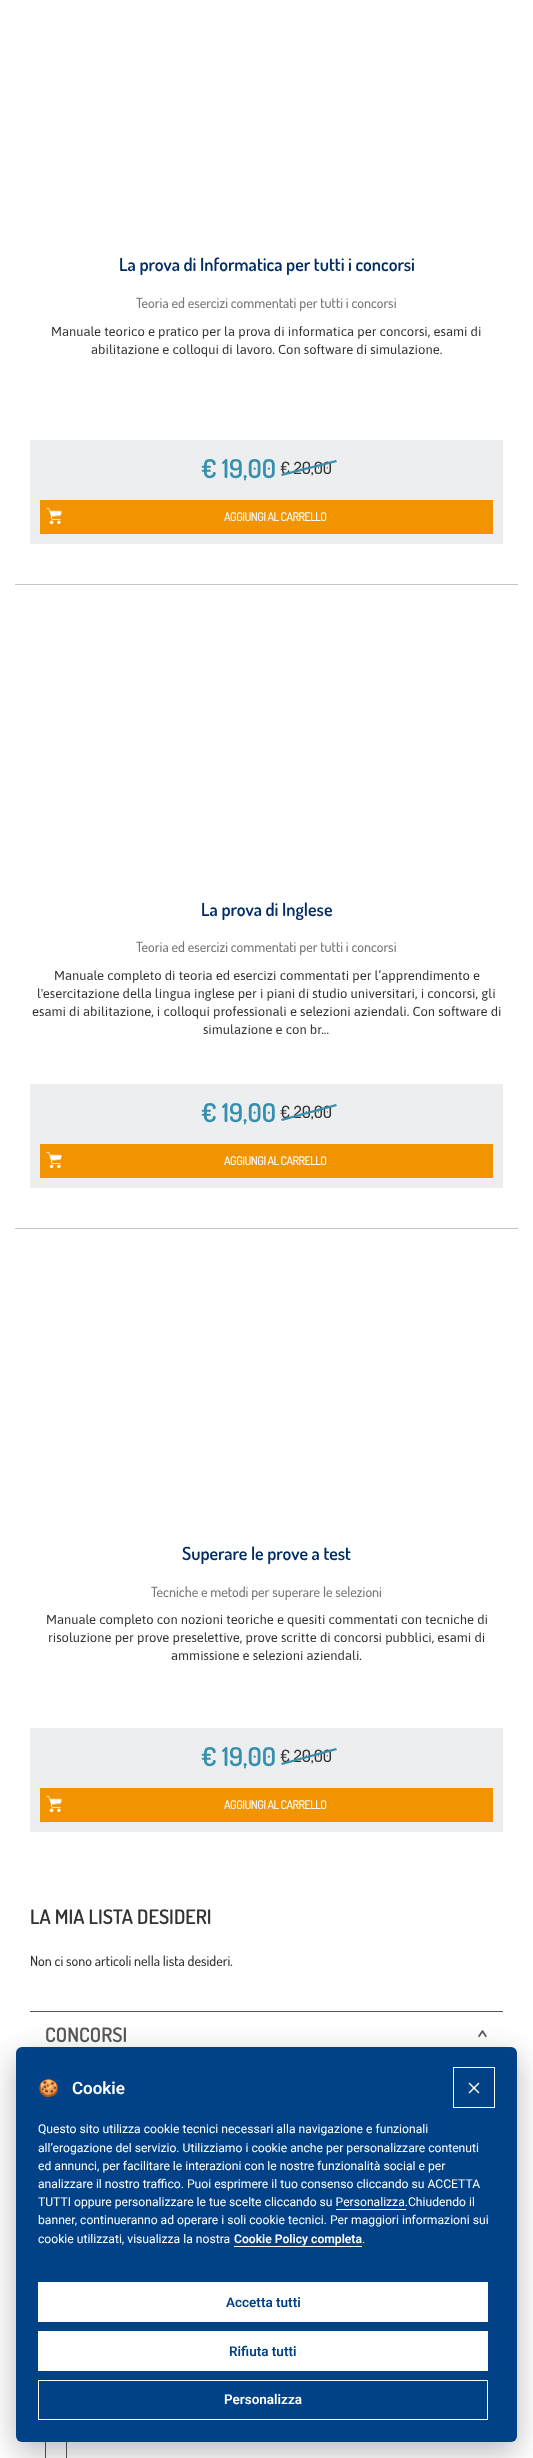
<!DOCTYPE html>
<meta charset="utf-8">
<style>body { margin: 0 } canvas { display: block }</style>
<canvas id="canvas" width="533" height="2458"></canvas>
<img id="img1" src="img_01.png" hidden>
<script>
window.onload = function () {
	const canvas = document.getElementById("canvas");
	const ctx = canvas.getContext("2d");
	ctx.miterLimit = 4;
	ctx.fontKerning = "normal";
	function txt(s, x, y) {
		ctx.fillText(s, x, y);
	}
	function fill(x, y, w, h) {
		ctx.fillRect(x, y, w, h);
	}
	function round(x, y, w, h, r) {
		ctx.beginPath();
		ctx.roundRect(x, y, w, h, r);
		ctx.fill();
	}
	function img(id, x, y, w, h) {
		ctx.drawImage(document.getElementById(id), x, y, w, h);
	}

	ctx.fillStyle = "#FFFFFF";
	fill(0, 0, 533, 2458);
	ctx.fillStyle = "#EDEEF0";
	fill(30, 440, 473, 104);
	ctx.fillStyle = "#F29400";
	fill(40, 500, 453, 34);
	img("img1", 46, 508, 16, 16);
	ctx.fillStyle = "#C5C5C6";
	fill(15, 584, 503, 1);
	ctx.fillStyle = "#EDEEF0";
	fill(30, 1084, 473, 104);
	ctx.fillStyle = "#F29400";
	fill(40, 1144, 453, 34);
	img("img1", 46, 1152, 16, 16);
	ctx.fillStyle = "#C5C5C6";
	fill(15, 1228, 503, 1);
	ctx.fillStyle = "#EDEEF0";
	fill(30, 1728, 473, 104);
	ctx.fillStyle = "#F29400";
	fill(40, 1788, 453, 34);
	img("img1", 46, 1796, 16, 16);
	ctx.fillStyle = "#555555";
	fill(30, 2011, 473, 1);
	fill(45, 2442, 1, 16);
	fill(66, 2442, 1, 16);
	ctx.fillStyle = "rgba(2, 2, 3, 0.28)";
	ctx.filter = "blur(15px)";
	ctx.beginPath();
	ctx.roundRect(16, 2057, 501, 395, 6);
	ctx.fill();
	ctx.filter = "none";
	ctx.fillStyle = "#004187";
	round(16, 2047, 501, 395, 6);
	ctx.strokeStyle = "#FFFFFF";
	ctx.strokeRect(453.5, 2067.5, 41, 40);
	ctx.fillStyle = "#FFFFFF";
	ctx.beginPath();
	ctx.moveTo(478.5, 2082.5);
	ctx.lineTo(479.5, 2083.5);
	ctx.lineTo(469.5, 2093.5);
	ctx.lineTo(468.5, 2092.5);
	ctx.closePath();
	ctx.fill();
	ctx.beginPath();
	ctx.moveTo(468.5, 2083.5);
	ctx.lineTo(469.5, 2082.5);
	ctx.lineTo(479.5, 2092.5);
	ctx.lineTo(478.5, 2093.5);
	ctx.closePath();
	ctx.fill();
	fill(336, 2209, 70, 1);
	fill(234, 2246, 128, 1);
	fill(38, 2282, 450, 40);
	fill(38, 2331, 450, 40);
	ctx.strokeRect(38.5, 2380.5, 449, 39);
	ctx.font = "200 18px Dosis";
	ctx.fillStyle = "#002E64";
	txt("La prova di Informatica per tutti i concorsi", 119, 271);
	ctx.font = "200 14px 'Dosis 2'";
	ctx.fillStyle = "#777777";
	txt("Teoria ed esercizi commentati per tutti i concorsi", 136, 308);
	ctx.font = "13px Asap";
	ctx.fillStyle = "#333333";
	txt("Manuale teorico e pratico per la prova di informatica per concorsi, esami di", 51, 336);
	txt("abilitazione e colloqui di lavoro. Con software di simulazione.", 91, 354);
	ctx.font = "200 26px Dosis";
	ctx.fillStyle = "#378FAE";
	txt("€ 19,00", 201, 478);
	ctx.font = "200 17px 'Dosis 2'";
	ctx.fillStyle = "#333333";
	txt("€ 20,00", 280, 474);
	ctx.fillStyle = "#378FAE";
	ctx.beginPath();
	ctx.moveTo(281, 474);
	ctx.lineTo(336, 460);
	ctx.lineTo(337, 462);
	ctx.lineTo(282, 476);
	ctx.closePath();
	ctx.fill();
	ctx.letterSpacing = "-0.5px";
	ctx.font = "200 12px 'Dosis 2'";
	ctx.fillStyle = "#FFFFFF";
	txt("AGGIUNGI AL CARRELLO", 224, 521);
	ctx.letterSpacing = "0px";
	ctx.font = "200 18px Dosis";
	ctx.fillStyle = "#002E64";
	txt("La prova di Inglese", 201, 916);
	ctx.font = "200 14px 'Dosis 2'";
	ctx.fillStyle = "#777777";
	txt("Teoria ed esercizi commentati per tutti i concorsi", 136, 952);
	ctx.font = "13px Asap";
	ctx.fillStyle = "#333333";
	txt("Manuale completo di teoria ed esercizi commentati per l’apprendimento e", 54, 980);
	txt("l'esercitazione della lingua inglese per i piani di studio universitari, i concorsi, gli", 37, 998);
	txt("esami di abilitazione, i colloqui professionali e selezioni aziendali. Con software di", 32, 1016);
	txt("simulazione e con br...", 203, 1034);
	ctx.font = "200 26px Dosis";
	ctx.fillStyle = "#378FAE";
	txt("€ 19,00", 201, 1122);
	ctx.font = "200 17px 'Dosis 2'";
	ctx.fillStyle = "#333333";
	txt("€ 20,00", 280, 1118);
	ctx.fillStyle = "#378FAE";
	ctx.beginPath();
	ctx.moveTo(281, 1119);
	ctx.lineTo(336, 1104);
	ctx.lineTo(337, 1106);
	ctx.lineTo(282, 1121);
	ctx.closePath();
	ctx.fill();
	ctx.letterSpacing = "-0.5px";
	ctx.font = "200 12px 'Dosis 2'";
	ctx.fillStyle = "#FFFFFF";
	txt("AGGIUNGI AL CARRELLO", 224, 1165);
	ctx.letterSpacing = "0px";
	ctx.font = "200 18px Dosis";
	ctx.fillStyle = "#002E64";
	txt("Superare le prove a test", 182, 1560);
	ctx.font = "200 14px 'Dosis 2'";
	ctx.fillStyle = "#777777";
	txt("Tecniche e metodi per superare le selezioni", 151, 1597);
	ctx.font = "13px Asap";
	ctx.fillStyle = "#333333";
	txt("Manuale completo con nozioni teoriche e quesiti commentati con tecniche di", 46, 1624);
	txt("risoluzione per prove preselettive, prove scritte di concorsi pubblici, esami di", 48, 1642);
	txt("ammissione e selezioni aziendali.", 171, 1660);
	ctx.font = "200 26px Dosis";
	ctx.fillStyle = "#378FAE";
	txt("€ 19,00", 201, 1766);
	ctx.font = "200 17px 'Dosis 2'";
	ctx.fillStyle = "#333333";
	txt("€ 20,00", 280, 1762);
	ctx.fillStyle = "#378FAE";
	ctx.beginPath();
	ctx.moveTo(281, 1763);
	ctx.lineTo(336, 1748);
	ctx.lineTo(337, 1750);
	ctx.lineTo(282, 1765);
	ctx.closePath();
	ctx.fill();
	ctx.letterSpacing = "-0.5px";
	ctx.font = "200 12px 'Dosis 2'";
	ctx.fillStyle = "#FFFFFF";
	txt("AGGIUNGI AL CARRELLO", 224, 1809);
	ctx.letterSpacing = "0px";
	ctx.font = "200 20px Dosis";
	ctx.fillStyle = "#333333";
	txt("LA MIA LISTA DESIDERI", 30, 1924);
	ctx.font = "200 14px 'Dosis 2'";
	txt("Non ci sono articoli nella lista desideri.", 30, 1966);
	ctx.font = "200 20px Dosis";
	ctx.fillStyle = "#555555";
	txt("CONCORSI", 45, 2042);
	ctx.save();
	ctx.translate(488, 2038);
	ctx.rotate(-90 * Math.PI / 180);
	ctx.fillText(">", 0, 0);
	ctx.restore();
	ctx.font = "bold 17px Noto Color Emoji";
	ctx.fillStyle = "#FFFFFF";
	txt("🍪", 38, 2094);
	ctx.font = "600 17px Roboto";
	txt("Cookie", 72, 2094);
	ctx.font = "12.15px Roboto";
	txt("Questo sito utilizza cookie tecnici necessari alla navigazione e funzionali", 38, 2133);
	txt("all’erogazione del servizio. Utilizziamo i cookie anche per personalizzare contenuti", 38, 2152);
	txt("ed annunci, per facilitare le interazioni con le nostre funzionalità social e per", 38, 2170);
	txt("analizzare il nostro traffico. Puoi esprimere il tuo consenso cliccando su ACCETTA", 38, 2188);
	txt("TUTTI oppure personalizzare le tue scelte cliccando su Personalizza.Chiudendo il", 38, 2206);
	txt("banner, continueranno ad operare i soli cookie tecnici. Per maggiori informazioni sui", 38, 2224);
	txt("cookie utilizzati, visualizza la nostra", 38, 2243);
	ctx.font = "600 12.15px Roboto";
	txt("Cookie Policy completa", 234, 2243);
	ctx.font = "12.15px Roboto";
	txt(".", 362, 2243);
	ctx.font = "600 13.5px Roboto";
	ctx.fillStyle = "#004186";
	txt("Accetta tutti", 226, 2307);
	txt("Rifiuta tutti", 229, 2356);
	ctx.fillStyle = "#FFFFFF";
	txt("Personalizza", 224, 2404);
};
</script>
